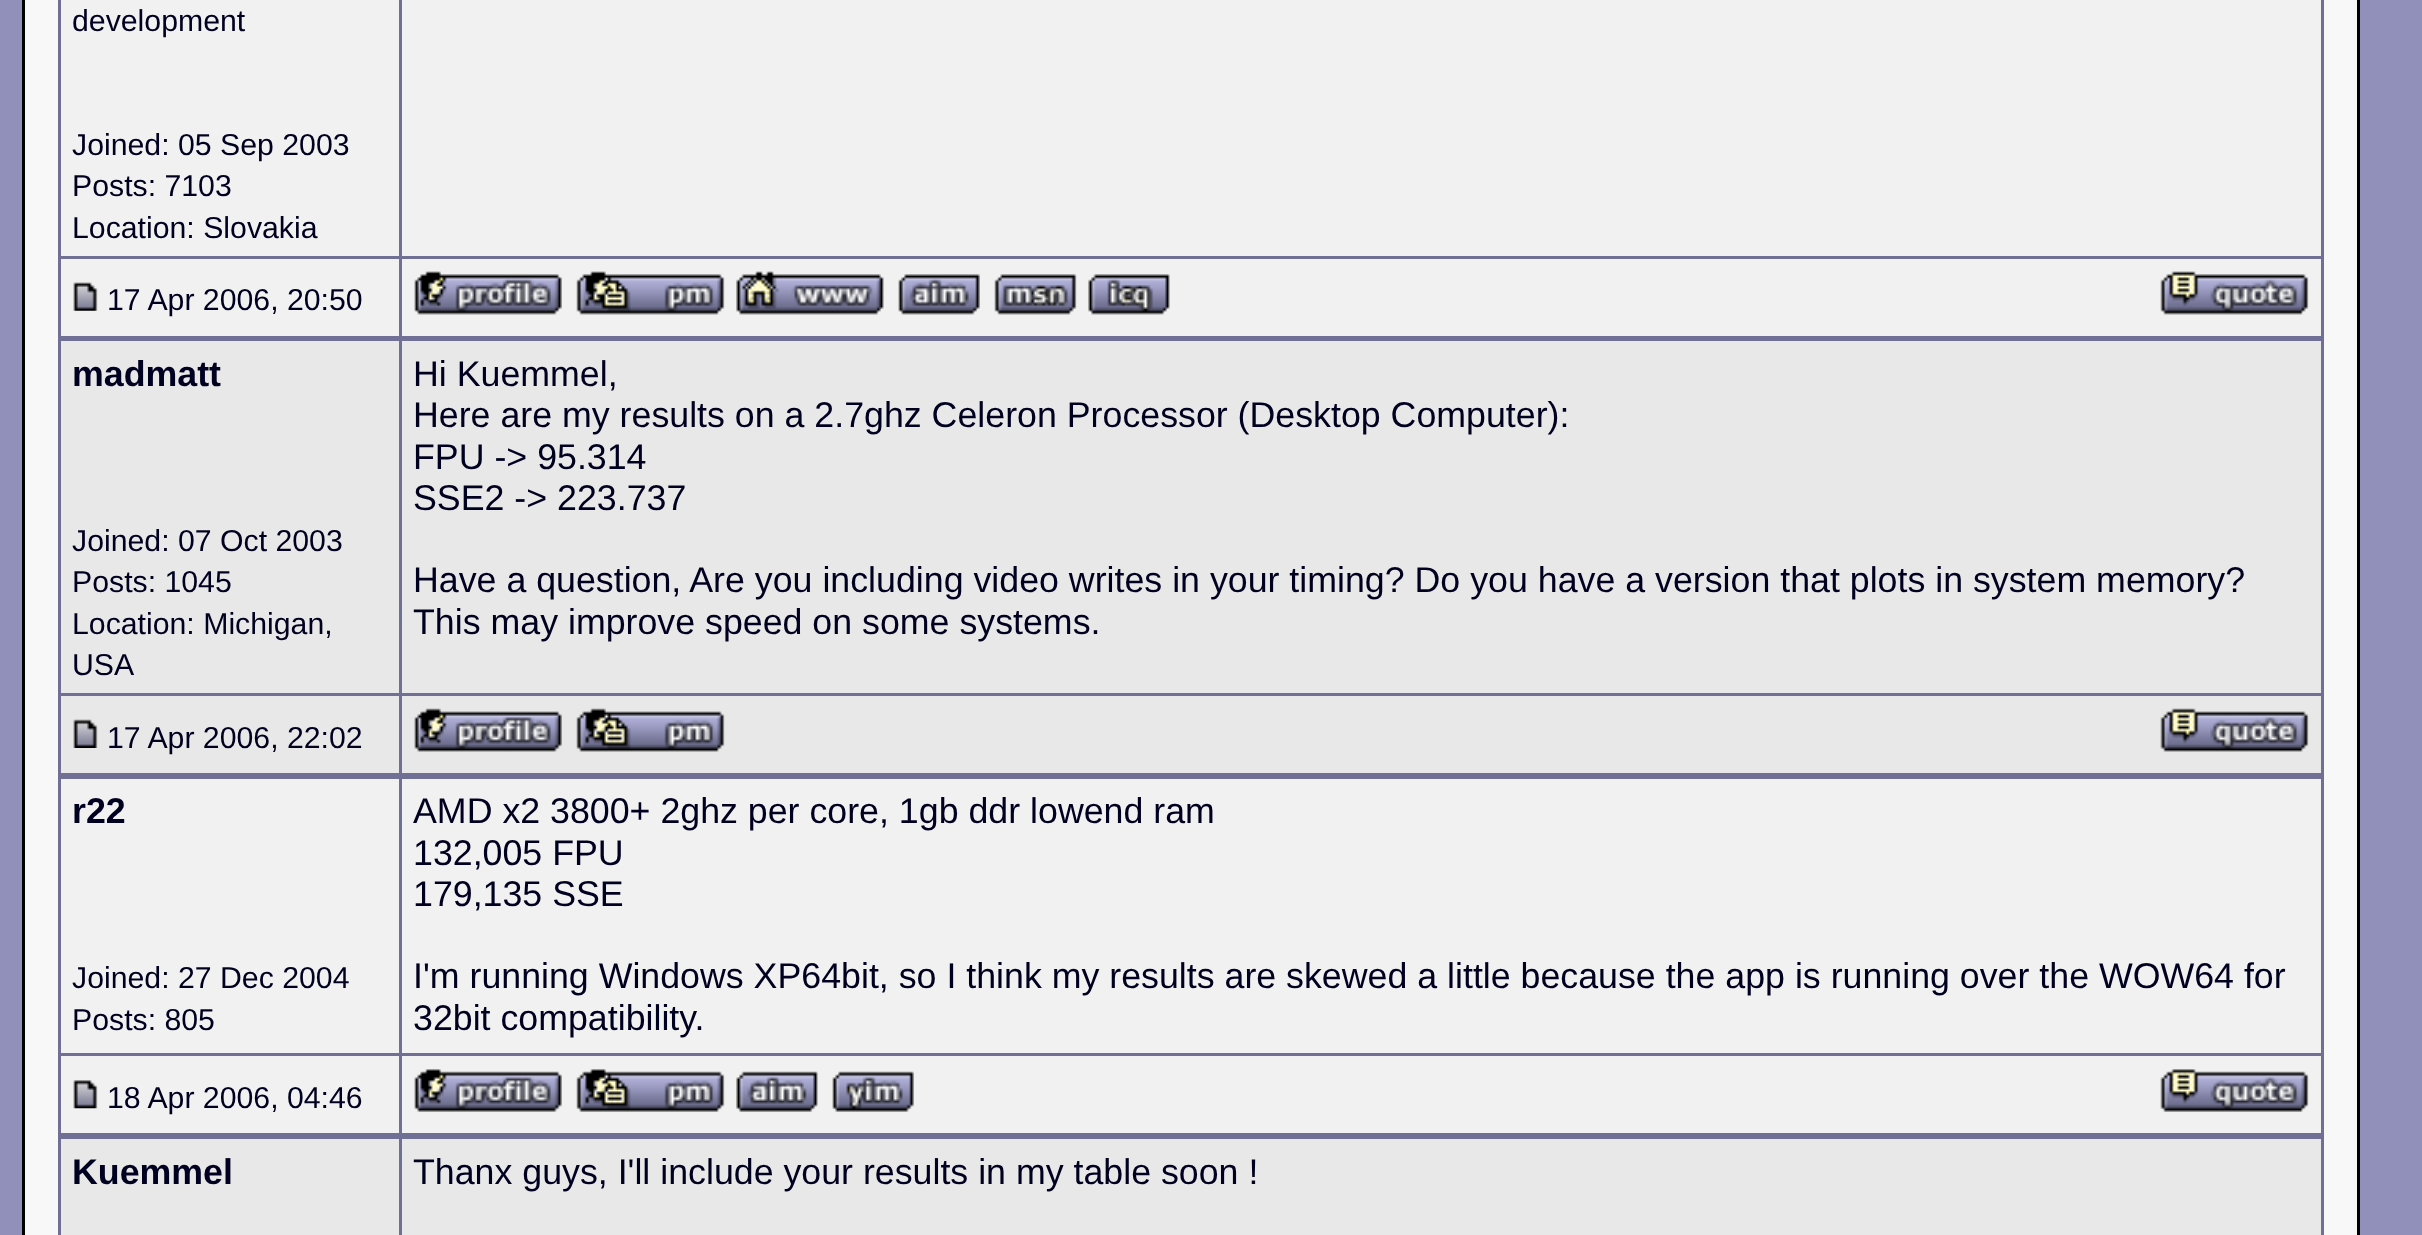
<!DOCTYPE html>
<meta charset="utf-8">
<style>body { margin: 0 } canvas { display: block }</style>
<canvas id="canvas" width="2422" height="1235"></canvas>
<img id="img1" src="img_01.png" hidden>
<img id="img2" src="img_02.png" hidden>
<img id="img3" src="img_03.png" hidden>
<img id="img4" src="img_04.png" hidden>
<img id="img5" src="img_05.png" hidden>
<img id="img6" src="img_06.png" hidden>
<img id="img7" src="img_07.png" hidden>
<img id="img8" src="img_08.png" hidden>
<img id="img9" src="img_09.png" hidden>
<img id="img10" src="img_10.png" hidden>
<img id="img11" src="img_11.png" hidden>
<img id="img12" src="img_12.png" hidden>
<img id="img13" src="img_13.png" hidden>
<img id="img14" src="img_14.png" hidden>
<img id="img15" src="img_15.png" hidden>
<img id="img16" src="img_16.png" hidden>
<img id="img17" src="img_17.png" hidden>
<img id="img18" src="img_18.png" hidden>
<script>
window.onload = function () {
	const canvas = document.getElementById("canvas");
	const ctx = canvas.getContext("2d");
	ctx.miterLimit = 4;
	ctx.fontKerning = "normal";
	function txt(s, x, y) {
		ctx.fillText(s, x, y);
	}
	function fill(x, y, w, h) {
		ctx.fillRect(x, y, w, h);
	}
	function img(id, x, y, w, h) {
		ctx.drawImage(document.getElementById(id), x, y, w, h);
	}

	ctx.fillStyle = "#9090BB";
	fill(0, 0, 2422, 1235);
	ctx.fillStyle = "#F8F8F8";
	ctx.beginPath();
	ctx.rect(23.5, -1.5, 2335, 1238);
	ctx.fill();
	ctx.strokeStyle = "#000000";
	ctx.lineWidth = 3;
	ctx.stroke();
	ctx.fillStyle = "#707096";
	fill(2321, 0, 3, 338);
	fill(58, 336, 2266, 5);
	fill(58, 0, 3, 338);
	ctx.fillStyle = "#F1F1F1";
	fill(61, 0, 338, 256);
	fill(402, 0, 1919, 256);
	ctx.fillStyle = "#707096";
	fill(58, 256, 2266, 3);
	ctx.fillStyle = "#F1F1F1";
	fill(61, 259, 338, 77);
	img("img1", 73, 282, 25, 29);
	fill(402, 259, 1919, 77);
	ctx.fillStyle = "#707096";
	fill(399, 0, 3, 338);
	img("img2", 414, 271, 148, 44);
	img("img3", 576, 271, 149, 44);
	img("img4", 736, 271, 148, 44);
	img("img5", 898, 274, 82, 41);
	img("img6", 994, 274, 83, 41);
	img("img7", 1088, 274, 82, 41);
	img("img8", 2160, 271, 149, 44);
	fill(2321, 338, 3, 438);
	fill(58, 773, 2266, 6);
	fill(58, 338, 3, 438);
	ctx.fillStyle = "#E8E8E8";
	fill(61, 341, 338, 352);
	fill(402, 341, 1919, 352);
	ctx.fillStyle = "#707096";
	fill(58, 693, 2266, 3);
	ctx.fillStyle = "#E8E8E8";
	fill(61, 696, 338, 77);
	img("img9", 73, 719, 25, 29);
	fill(402, 696, 1919, 77);
	ctx.fillStyle = "#707096";
	fill(399, 338, 3, 438);
	img("img10", 414, 708, 148, 44);
	img("img11", 576, 708, 149, 44);
	img("img12", 2160, 708, 149, 44);
	fill(2321, 776, 3, 360);
	fill(58, 1133, 2266, 6);
	fill(58, 776, 3, 459);
	ctx.fillStyle = "#F1F1F1";
	fill(61, 779, 338, 274);
	fill(402, 779, 1919, 274);
	ctx.fillStyle = "#707096";
	fill(58, 1053, 2266, 3);
	ctx.fillStyle = "#F1F1F1";
	fill(61, 1056, 338, 77);
	img("img13", 73, 1080, 25, 29);
	fill(402, 1056, 1919, 77);
	ctx.fillStyle = "#707096";
	fill(399, 776, 3, 459);
	img("img14", 414, 1069, 148, 43);
	img("img15", 576, 1069, 149, 43);
	img("img16", 736, 1071, 82, 41);
	img("img17", 832, 1071, 82, 41);
	img("img18", 2160, 1069, 149, 43);
	fill(2321, 1136, 3, 99);
	ctx.fillStyle = "#E8E8E8";
	fill(61, 1139, 338, 96);
	fill(402, 1139, 1919, 96);
	ctx.font = "30.25px Liberation Sans";
	ctx.fillStyle = "#000020";
	txt("development", 72, 31);
	txt("Joined: 05 Sep 2003", 72, 155);
	txt("Posts: 7103", 72, 196);
	txt("Location: Slovakia", 72, 238);
	txt("17 Apr 2006, 20:50", 107, 310);
	ctx.font = "bold 35.75px Liberation Sans";
	txt("madmatt", 72, 386);
	ctx.font = "30.25px Liberation Sans";
	txt("Joined: 07 Oct 2003", 72, 551);
	txt("Posts: 1045", 72, 592);
	txt("Location: Michigan,", 72, 634);
	txt("USA", 72, 675);
	ctx.font = "35.75px Liberation Sans";
	txt("Hi Kuemmel,", 413, 386);
	txt("Here are my results on a 2.7ghz Celeron Processor (Desktop Computer):", 413, 427);
	txt("FPU -> 95.314", 413, 469);
	txt("SSE2 -> 223.737", 413, 510);
	txt("Have a question, Are you including video writes in your timing? Do you have a version that plots in system memory?", 413, 592);
	txt("This may improve speed on some systems.", 413, 634);
	ctx.font = "30.25px Liberation Sans";
	txt("17 Apr 2006, 22:02", 107, 748);
	ctx.font = "bold 35.75px Liberation Sans";
	txt("r22", 72, 823);
	ctx.font = "30.25px Liberation Sans";
	txt("Joined: 27 Dec 2004", 72, 988);
	txt("Posts: 805", 72, 1030);
	ctx.font = "35.75px Liberation Sans";
	txt("AMD x2 3800+ 2ghz per core, 1gb ddr lowend ram", 413, 823);
	txt("132,005 FPU", 413, 865);
	txt("179,135 SSE", 413, 906);
	txt("I'm running Windows XP64bit, so I think my results are skewed a little because the app is running over the WOW64 for", 413, 988);
	txt("32bit compatibility.", 413, 1030);
	ctx.font = "30.25px Liberation Sans";
	txt("18 Apr 2006, 04:46", 107, 1108);
	ctx.font = "bold 35.75px Liberation Sans";
	txt("Kuemmel", 72, 1184);
	ctx.font = "35.75px Liberation Sans";
	txt("Thanx guys, I'll include your results in my table soon !", 413, 1184);
};
</script>
